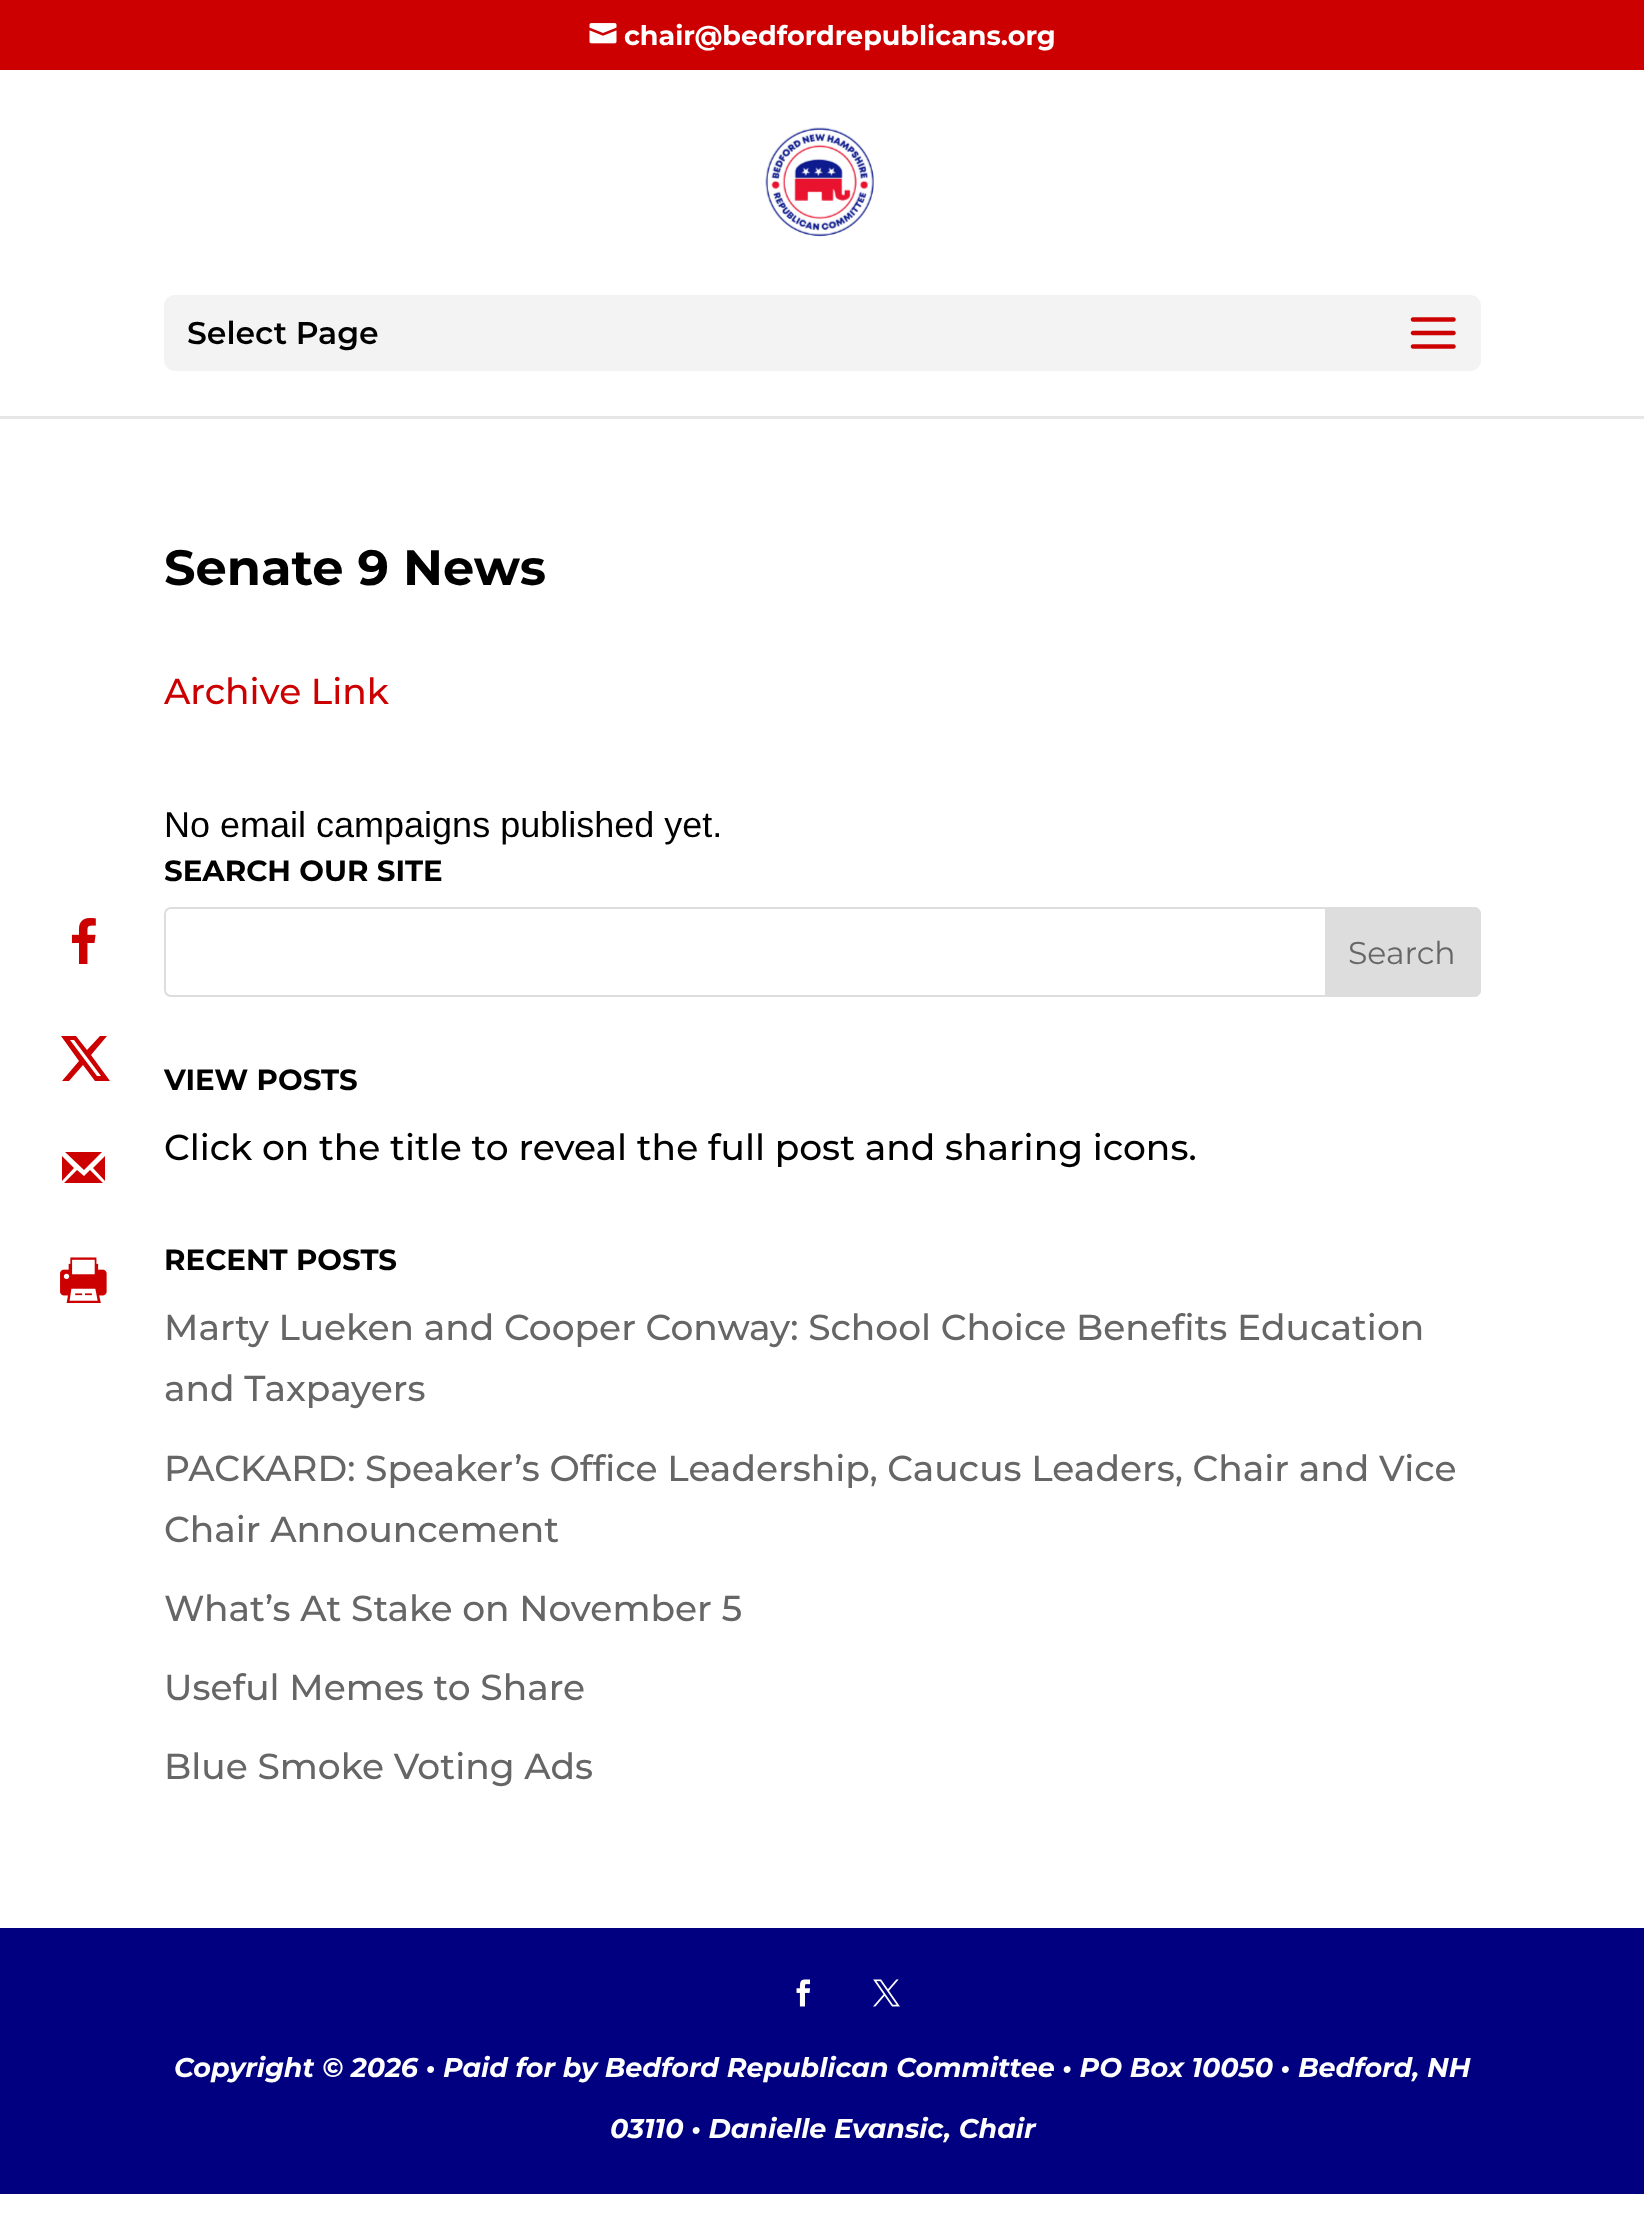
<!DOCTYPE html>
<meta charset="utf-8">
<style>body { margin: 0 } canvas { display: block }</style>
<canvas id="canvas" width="1644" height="2219"></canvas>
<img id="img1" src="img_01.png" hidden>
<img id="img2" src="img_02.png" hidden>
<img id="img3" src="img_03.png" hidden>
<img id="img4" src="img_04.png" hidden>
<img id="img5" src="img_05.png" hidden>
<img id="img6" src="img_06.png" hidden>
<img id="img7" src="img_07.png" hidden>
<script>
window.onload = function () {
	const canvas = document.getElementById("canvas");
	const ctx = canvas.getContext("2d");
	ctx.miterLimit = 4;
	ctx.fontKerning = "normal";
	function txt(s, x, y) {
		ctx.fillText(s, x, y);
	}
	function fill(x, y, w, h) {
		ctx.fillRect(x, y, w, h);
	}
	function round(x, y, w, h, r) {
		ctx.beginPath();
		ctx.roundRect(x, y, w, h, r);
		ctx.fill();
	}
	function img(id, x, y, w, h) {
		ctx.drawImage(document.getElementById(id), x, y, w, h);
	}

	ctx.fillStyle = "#FFFFFF";
	fill(0, 0, 1644, 2219);
	img("img1", 71, 918, 25, 46);
	ctx.fillStyle = "#CC0000";
	ctx.beginPath();
	ctx.moveTo(100, 1036);
	ctx.lineTo(107, 1036);
	ctx.lineTo(91, 1055);
	ctx.lineTo(110, 1081);
	ctx.lineTo(95, 1081);
	ctx.lineTo(83, 1065);
	ctx.lineTo(69, 1081);
	ctx.lineTo(62, 1081);
	ctx.lineTo(79, 1061);
	ctx.lineTo(61, 1036);
	ctx.lineTo(76, 1036);
	ctx.lineTo(87, 1050);
	ctx.closePath();
	ctx.moveTo(97, 1076);
	ctx.lineTo(101, 1076);
	ctx.lineTo(74, 1040);
	ctx.lineTo(70, 1040);
	ctx.closePath();
	ctx.fill();
	ctx.beginPath();
	ctx.moveTo(90, 1170);
	ctx.lineTo(103, 1183);
	ctx.lineTo(64, 1183);
	ctx.lineTo(77, 1170);
	ctx.lineTo(84, 1176);
	ctx.closePath();
	ctx.moveTo(65, 1152);
	ctx.lineTo(102, 1152);
	ctx.lineTo(84, 1170);
	ctx.closePath();
	ctx.moveTo(93, 1168);
	ctx.lineTo(105, 1156);
	ctx.lineTo(105, 1181);
	ctx.closePath();
	ctx.moveTo(62, 1181);
	ctx.lineTo(62, 1156);
	ctx.lineTo(74, 1168);
	ctx.closePath();
	ctx.fill();
	img("img2", 60, 1257, 47, 46);
	fill(0, 0, 1644, 70);
	img("img3", 589, 23, 28, 21);
	ctx.fillStyle = "#E6E6E6";
	ctx.beginPath();
	ctx.moveTo(0, 416);
	ctx.lineTo(0, 419);
	ctx.lineTo(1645, 419);
	ctx.lineTo(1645, 72);
	ctx.lineTo(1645, 416);
	ctx.closePath();
	ctx.fill();
	img("img4", 765, 127, 109, 110);
	ctx.fillStyle = "#F3F3F3";
	round(164, 295, 1317, 76, 11);
	img("img5", 1410, 317, 46, 32);
	ctx.beginPath();
	ctx.roundRect(165, 908, 1315, 88, 6);
	ctx.strokeStyle = "#DDDDDD";
	ctx.lineWidth = 2;
	ctx.stroke();
	ctx.fillStyle = "#DDDDDD";
	ctx.beginPath();
	ctx.roundRect(1326, 908, 154, 88, [0, 6, 6, 0]);
	ctx.fill();
	ctx.stroke();
	ctx.fillStyle = "#000080";
	fill(0, 1928, 1644, 266);
	img("img6", 796, 1979, 15, 28);
	img("img7", 873, 1979, 27, 28);
	ctx.font = "bold 27px Montserrat";
	ctx.fillStyle = "#FFFFFF";
	txt("chair@bedfordrepublicans.org", 624, 45);
	ctx.font = "600 31.5px Montserrat";
	ctx.fillStyle = "#000000";
	txt("Select Page", 187, 344);
	ctx.font = "bold 49.5px Montserrat";
	txt("Senate 9 News", 164, 585);
	ctx.font = "500 36px Montserrat";
	ctx.fillStyle = "#CC0000";
	txt("Archive Link", 164, 704);
	ctx.font = "36px Liberation Sans";
	ctx.fillStyle = "#000000";
	txt("No email campaigns published yet.", 164, 837);
	ctx.font = "bold 29.25px Montserrat";
	txt("SEARCH OUR SITE", 164, 881);
	ctx.font = "31.5px Montserrat";
	ctx.fillStyle = "#666666";
	txt("Search", 1348, 964);
	ctx.font = "bold 29.25px Montserrat";
	ctx.fillStyle = "#000000";
	txt("VIEW POSTS", 164, 1090);
	ctx.font = "500 36px Montserrat";
	txt("Click on the title to reveal the full post and sharing icons.", 164, 1160);
	ctx.font = "bold 29.25px Montserrat";
	txt("RECENT POSTS", 164, 1270);
	ctx.font = "500 36px Montserrat";
	ctx.fillStyle = "#666666";
	txt("Marty Lueken and Cooper Conway: School Choice Benefits Education", 164, 1340);
	txt("and Taxpayers", 164, 1401);
	txt("PACKARD: Speaker’s Office Leadership, Caucus Leaders, Chair and Vice", 164, 1481);
	txt("Chair Announcement", 164, 1542);
	txt("What’s At Stake on November 5", 164, 1621);
	txt("Useful Memes to Share", 164, 1700);
	txt("Blue Smoke Voting Ads", 164, 1779);
	ctx.font = "italic bold 27px Montserrat";
	ctx.fillStyle = "#FFFFFF";
	txt("Copyright © 2026 • Paid for by Bedford Republican Committee • PO Box 10050 • Bedford, NH", 174, 2077);
	txt("03110 • Danielle Evansic, Chair", 610, 2138);
};
</script>
